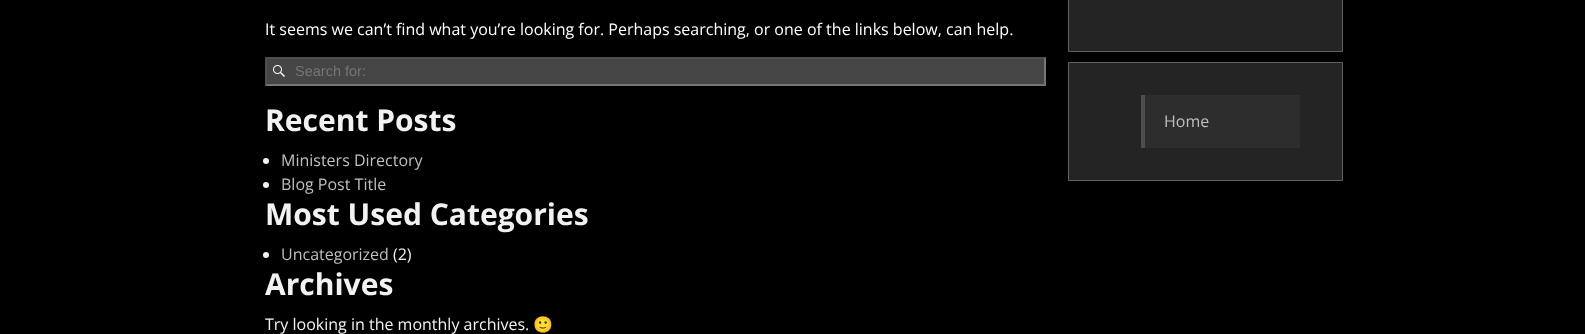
<!DOCTYPE html>
<meta charset="utf-8">
<style>body { margin: 0 } canvas { display: block }</style>
<canvas id="canvas" width="1585" height="334"></canvas>
<img id="img1" src="img_01.png" hidden>
<script>
window.onload = function () {
	const canvas = document.getElementById("canvas");
	const ctx = canvas.getContext("2d");
	ctx.miterLimit = 4;
	ctx.fontKerning = "normal";
	function txt(s, x, y) {
		ctx.fillText(s, x, y);
	}
	function fill(x, y, w, h) {
		ctx.fillRect(x, y, w, h);
	}
	function img(id, x, y, w, h) {
		ctx.drawImage(document.getElementById(id), x, y, w, h);
	}

	ctx.fillStyle = "#000000";
	fill(0, 0, 1585, 334);
	ctx.fillStyle = "#454545";
	fill(265, 57, 781, 29);
	img("img1", 273, 65, 12, 12);
	ctx.fillStyle = "#4F4F4F";
	ctx.beginPath();
	ctx.moveTo(265, 57);
	ctx.lineTo(1046, 57);
	ctx.lineTo(1044, 59);
	ctx.lineTo(267, 59);
	ctx.closePath();
	ctx.fill();
	ctx.fillStyle = "#767676";
	ctx.beginPath();
	ctx.moveTo(1046, 57);
	ctx.lineTo(1046, 86);
	ctx.lineTo(1044, 84);
	ctx.lineTo(1044, 59);
	ctx.closePath();
	ctx.fill();
	ctx.beginPath();
	ctx.moveTo(1046, 86);
	ctx.lineTo(265, 86);
	ctx.lineTo(267, 84);
	ctx.lineTo(1044, 84);
	ctx.closePath();
	ctx.fill();
	ctx.fillStyle = "#4F4F4F";
	ctx.beginPath();
	ctx.moveTo(265, 86);
	ctx.lineTo(265, 57);
	ctx.lineTo(267, 59);
	ctx.lineTo(267, 84);
	ctx.closePath();
	ctx.fill();
	ctx.fillStyle = "#F2F2F2";
	ctx.beginPath();
	ctx.arc(266, 161, 3, 0, Math.PI * 2);
	ctx.fill();
	ctx.beginPath();
	ctx.arc(266, 185, 3, 0, Math.PI * 2);
	ctx.fill();
	ctx.beginPath();
	ctx.arc(266, 255, 3, 0, Math.PI * 2);
	ctx.fill();
	ctx.fillStyle = "#242424";
	ctx.beginPath();
	ctx.rect(1068.5, -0.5, 274, 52);
	ctx.fill();
	ctx.strokeStyle = "#616161";
	ctx.stroke();
	ctx.beginPath();
	ctx.rect(1068.5, 62.5, 274, 118);
	ctx.fill();
	ctx.stroke();
	ctx.fillStyle = "#2D2D2D";
	fill(1145, 95, 155, 53);
	ctx.fillStyle = "#4E4E4E";
	fill(1141, 95, 4, 53);
	ctx.font = "16px Open Sans";
	ctx.fillStyle = "#FFFFFF";
	txt("It seems we can’t find what you’re looking for. Perhaps searching, or one of the links below, can help.", 265, 35);
	ctx.font = "14.5px Liberation Sans";
	ctx.fillStyle = "#757575";
	txt("Search for:", 295, 76);
	ctx.font = "bold 30px Open Sans";
	ctx.fillStyle = "#F2F2F2";
	txt("Recent Posts", 265, 131);
	ctx.font = "16px Open Sans";
	ctx.fillStyle = "#BFBFBF";
	txt("Ministers Directory", 281, 166);
	txt("Blog Post Title", 281, 190);
	ctx.font = "bold 30px Open Sans";
	ctx.fillStyle = "#F2F2F2";
	txt("Most Used Categories", 265, 225);
	ctx.font = "16px Open Sans";
	ctx.fillStyle = "#BFBFBF";
	txt("Uncategorized", 281, 260);
	ctx.fillStyle = "#F2F2F2";
	txt("(2)", 393, 260);
	ctx.font = "bold 30px Open Sans";
	txt("Archives", 265, 295);
	ctx.font = "16px Open Sans";
	txt("Try looking in the monthly archives.", 265, 330);
	ctx.font = "16px Noto Color Emoji";
	txt("🙂", 533, 330);
	ctx.font = "16px Open Sans";
	ctx.fillStyle = "#BFBFBF";
	txt("Home", 1164, 127);
};
</script>
